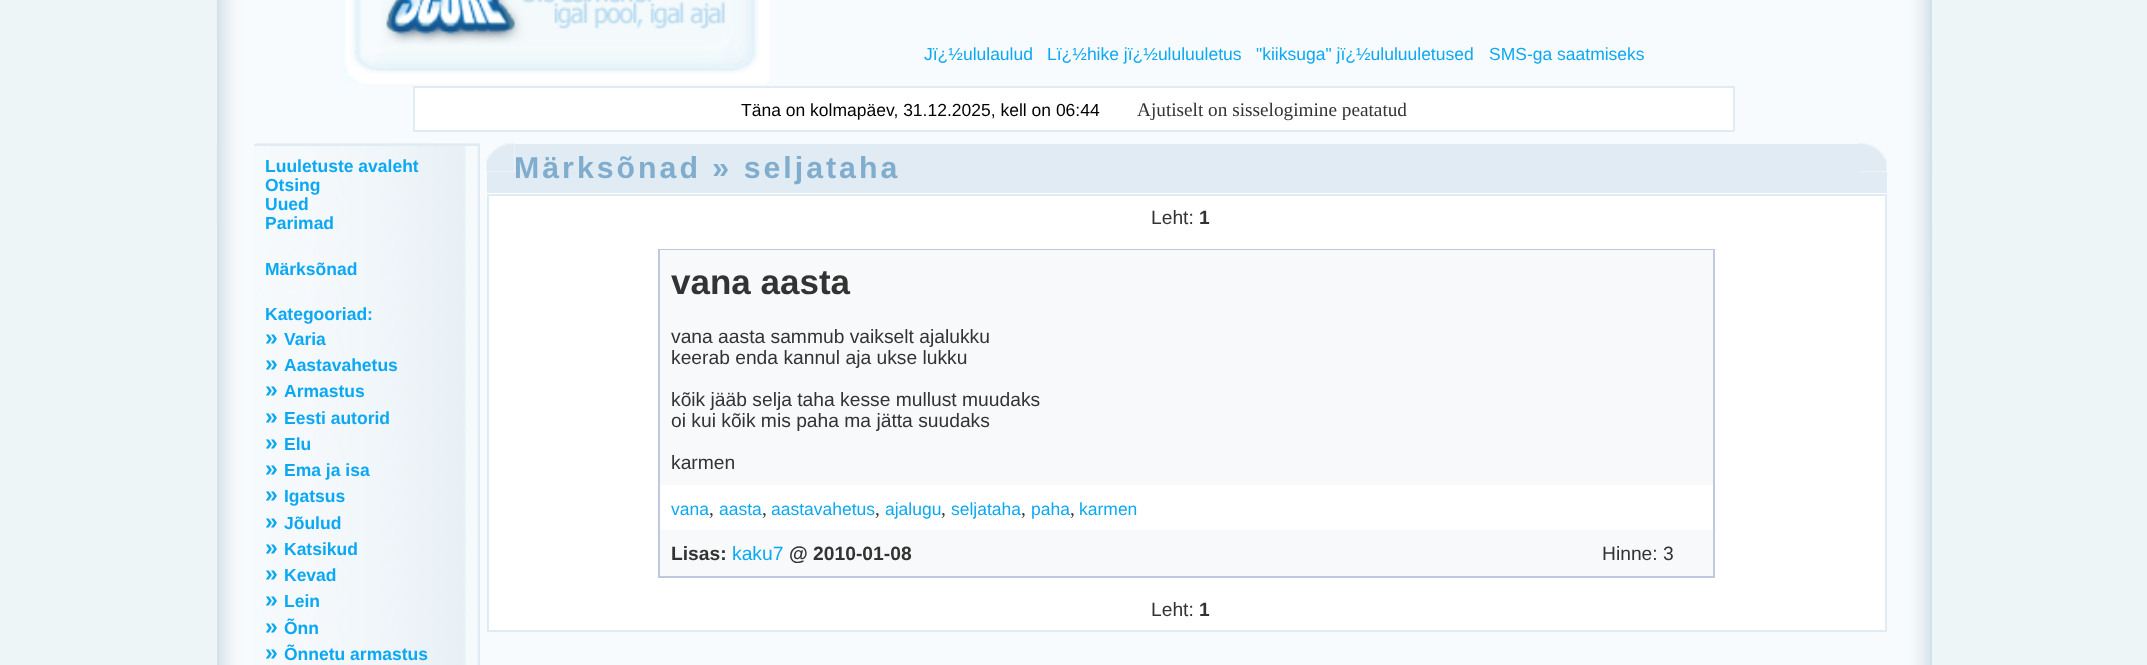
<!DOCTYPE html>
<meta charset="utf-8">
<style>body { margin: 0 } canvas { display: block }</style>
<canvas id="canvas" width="2147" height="665"></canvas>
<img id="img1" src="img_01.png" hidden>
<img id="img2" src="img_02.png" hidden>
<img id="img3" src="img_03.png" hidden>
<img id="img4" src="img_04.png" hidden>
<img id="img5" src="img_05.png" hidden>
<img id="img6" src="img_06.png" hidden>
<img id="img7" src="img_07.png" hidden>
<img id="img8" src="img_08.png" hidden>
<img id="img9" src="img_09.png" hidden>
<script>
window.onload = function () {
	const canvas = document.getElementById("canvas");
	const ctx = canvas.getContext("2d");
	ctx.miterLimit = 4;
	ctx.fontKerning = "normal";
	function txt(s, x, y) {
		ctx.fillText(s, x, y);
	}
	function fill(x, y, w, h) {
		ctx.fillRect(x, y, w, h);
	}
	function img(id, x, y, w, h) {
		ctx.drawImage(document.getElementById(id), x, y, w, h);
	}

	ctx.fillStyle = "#EEF5F7";
	fill(0, 0, 2147, 665);
	img("img1", 217, 0, 28, 133);
	ctx.fillStyle = "#F8FBFD";
	fill(245, 0, 1659, 665);
	img("img2", 340, 0, 430, 84);
	img("img3", 348, 0, 411, 75);
	ctx.fillStyle = "#FFFFFF";
	fill(415, 88, 1318, 42);
	ctx.fillStyle = "#E0EBF3";
	fill(413, 86, 1321, 2);
	fill(1733, 86, 2, 45);
	fill(413, 130, 1321, 2);
	fill(413, 86, 2, 45);
	img("img4", 1904, 0, 28, 133);
	img("img5", 217, 133, 28, 532);
	img("img6", 255, 143, 225, 522);
	fill(254, 144, 226, 2);
	fill(479, 144, 1, 521);
	img("img7", 486, 143, 29, 29);
	fill(515, 144, 1344, 49);
	img("img8", 1858, 143, 29, 29);
	fill(487, 172, 28, 21);
	fill(1859, 172, 28, 21);
	ctx.fillStyle = "#FFFFFF";
	fill(487, 193, 1400, 1);
	fill(489, 196, 1396, 434);
	ctx.fillStyle = "#E0EBF3";
	fill(487, 194, 1400, 2);
	fill(1885, 194, 2, 438);
	fill(487, 630, 1400, 2);
	fill(487, 194, 2, 438);
	ctx.strokeStyle = "#BFC8DF";
	ctx.lineWidth = 2;
	ctx.strokeRect(659, 250, 1055, 327);
	ctx.fillStyle = "#F7F9FB";
	fill(660, 250, 1053, 235);
	fill(660, 530, 1053, 46);
	img("img9", 1904, 133, 28, 532);
	ctx.font = "17.5px Liberation Sans";
	ctx.fillStyle = "#0DA8F2";
	txt("Jï¿½ululaulud", 924, 60);
	txt("Lï¿½hike jï¿½ululuuletus", 1047, 60);
	txt("\"kiiksuga\" jï¿½ululuuletused", 1256, 60);
	txt("SMS-ga saatmiseks", 1489, 60);
	ctx.fillStyle = "#000000";
	txt("Täna on kolmapäev, 31.12.2025, kell on 06:44", 741, 116);
	ctx.font = "19.25px Liberation Serif";
	ctx.fillStyle = "#333333";
	txt("Ajutiselt on sisselogimine peatatud", 1137, 116);
	ctx.font = "bold 17.5px Liberation Sans";
	ctx.fillStyle = "#0DA8F2";
	txt("Luuletuste avaleht", 265, 172);
	txt("Otsing", 265, 191);
	txt("Uued", 265, 210);
	txt("Parimad", 265, 229);
	txt("Märksõnad", 265, 275);
	txt("Kategooriad:", 265, 320);
	ctx.font = "bold 23px Liberation Sans";
	txt("»", 265, 345);
	ctx.font = "bold 17.5px Liberation Sans";
	txt("Varia", 284, 345);
	ctx.font = "bold 23px Liberation Sans";
	txt("»", 265, 371);
	ctx.font = "bold 17.5px Liberation Sans";
	txt("Aastavahetus", 284, 371);
	ctx.font = "bold 23px Liberation Sans";
	txt("»", 265, 397);
	ctx.font = "bold 17.5px Liberation Sans";
	txt("Armastus", 284, 397);
	ctx.font = "bold 23px Liberation Sans";
	txt("»", 265, 424);
	ctx.font = "bold 17.5px Liberation Sans";
	txt("Eesti autorid", 284, 424);
	ctx.font = "bold 23px Liberation Sans";
	txt("»", 265, 450);
	ctx.font = "bold 17.5px Liberation Sans";
	txt("Elu", 284, 450);
	ctx.font = "bold 23px Liberation Sans";
	txt("»", 265, 476);
	ctx.font = "bold 17.5px Liberation Sans";
	txt("Ema ja isa", 284, 476);
	ctx.font = "bold 23px Liberation Sans";
	txt("»", 265, 502);
	ctx.font = "bold 17.5px Liberation Sans";
	txt("Igatsus", 284, 502);
	ctx.font = "bold 23px Liberation Sans";
	txt("»", 265, 529);
	ctx.font = "bold 17.5px Liberation Sans";
	txt("Jõulud", 284, 529);
	ctx.font = "bold 23px Liberation Sans";
	txt("»", 265, 555);
	ctx.font = "bold 17.5px Liberation Sans";
	txt("Katsikud", 284, 555);
	ctx.font = "bold 23px Liberation Sans";
	txt("»", 265, 581);
	ctx.font = "bold 17.5px Liberation Sans";
	txt("Kevad", 284, 581);
	ctx.font = "bold 23px Liberation Sans";
	txt("»", 265, 607);
	ctx.font = "bold 17.5px Liberation Sans";
	txt("Lein", 284, 607);
	ctx.font = "bold 23px Liberation Sans";
	txt("»", 265, 634);
	ctx.font = "bold 17.5px Liberation Sans";
	txt("Õnn", 284, 634);
	ctx.font = "bold 23px Liberation Sans";
	txt("»", 265, 660);
	ctx.font = "bold 17.5px Liberation Sans";
	txt("Õnnetu armastus", 284, 660);
	ctx.letterSpacing = "3px";
	ctx.font = "bold 30.3px Liberation Sans";
	ctx.fillStyle = "#80ADCE";
	txt("Märksõnad » seljataha", 514, 178);
	ctx.letterSpacing = "0px";
	ctx.font = "19.25px Liberation Sans";
	ctx.fillStyle = "#333333";
	txt("Leht:", 1151, 224);
	ctx.font = "bold 19.25px Liberation Sans";
	txt("1", 1199, 224);
	ctx.font = "bold 35px Liberation Sans";
	txt("vana aasta", 671, 294);
	ctx.font = "19.25px Liberation Sans";
	txt("vana aasta sammub vaikselt ajalukku", 671, 343);
	txt("keerab enda kannul aja ukse lukku", 671, 364);
	txt("kõik jääb selja taha kesse mullust muudaks", 671, 406);
	txt("oi kui kõik mis paha ma jätta suudaks", 671, 427);
	txt("karmen", 671, 469);
	ctx.font = "17.5px Liberation Sans";
	ctx.fillStyle = "#0DA8F2";
	txt("vana", 671, 515);
	ctx.font = "19.25px Liberation Serif";
	ctx.fillStyle = "#333333";
	txt(",", 709, 515);
	ctx.font = "17.5px Liberation Sans";
	ctx.fillStyle = "#0DA8F2";
	txt("aasta", 719, 515);
	ctx.font = "19.25px Liberation Serif";
	ctx.fillStyle = "#333333";
	txt(",", 762, 515);
	ctx.font = "17.5px Liberation Sans";
	ctx.fillStyle = "#0DA8F2";
	txt("aastavahetus", 771, 515);
	ctx.font = "19.25px Liberation Serif";
	ctx.fillStyle = "#333333";
	txt(",", 875, 515);
	ctx.font = "17.5px Liberation Sans";
	ctx.fillStyle = "#0DA8F2";
	txt("ajalugu", 885, 515);
	ctx.font = "19.25px Liberation Serif";
	ctx.fillStyle = "#333333";
	txt(",", 941, 515);
	ctx.font = "17.5px Liberation Sans";
	ctx.fillStyle = "#0DA8F2";
	txt("seljataha", 951, 515);
	ctx.font = "19.25px Liberation Serif";
	ctx.fillStyle = "#333333";
	txt(",", 1021, 515);
	ctx.font = "17.5px Liberation Sans";
	ctx.fillStyle = "#0DA8F2";
	txt("paha", 1031, 515);
	ctx.font = "19.25px Liberation Serif";
	ctx.fillStyle = "#333333";
	txt(",", 1070, 515);
	ctx.font = "17.5px Liberation Sans";
	ctx.fillStyle = "#0DA8F2";
	txt("karmen", 1079, 515);
	ctx.font = "bold 19.25px Liberation Sans";
	ctx.fillStyle = "#333333";
	txt("Lisas:", 671, 560);
	ctx.font = "19.25px Liberation Sans";
	ctx.fillStyle = "#0DA8F2";
	txt("kaku7", 732, 560);
	ctx.font = "bold 19.25px Liberation Sans";
	ctx.fillStyle = "#333333";
	txt("@ 2010-01-08", 789, 560);
	ctx.font = "19.25px Liberation Sans";
	txt("Hinne: 3", 1602, 560);
	txt("Leht:", 1151, 616);
	ctx.font = "bold 19.25px Liberation Sans";
	txt("1", 1199, 616);
};
</script>
